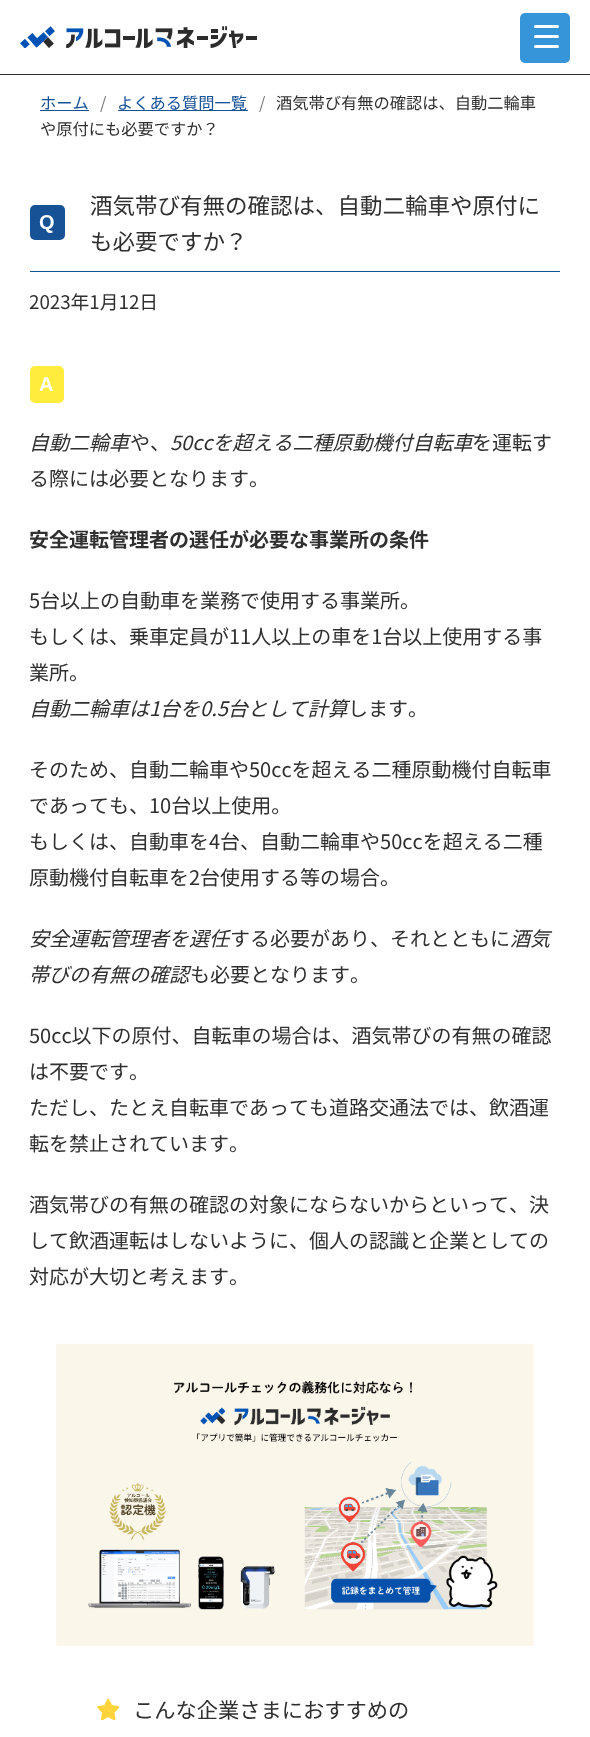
<!DOCTYPE html>
<meta charset="utf-8">
<style>body { margin: 0 } canvas { display: block }</style>
<canvas id="canvas" width="590" height="1737"></canvas>
<img id="img1" src="img_01.png" hidden>
<img id="img2" src="img_02.png" hidden>
<img id="img3" src="img_03.png" hidden>
<script>
window.onload = function () {
	const canvas = document.getElementById("canvas");
	const ctx = canvas.getContext("2d");
	ctx.miterLimit = 4;
	ctx.fontKerning = "none";
	function txt(s, x, y) {
		ctx.fillText(s, x, y);
	}
	function fill(x, y, w, h) {
		ctx.fillRect(x, y, w, h);
	}
	function round(x, y, w, h, r) {
		ctx.beginPath();
		ctx.roundRect(x, y, w, h, r);
		ctx.fill();
	}
	function img(id, x, y, w, h) {
		ctx.drawImage(document.getElementById(id), x, y, w, h);
	}

	ctx.fillStyle = "#FFFFFF";
	fill(0, 0, 590, 1737);
	ctx.fillStyle = "#2F2F2F";
	fill(0, 74, 590, 1);
	img("img1", 20, 26, 237, 22);
	ctx.fillStyle = "#3695D8";
	round(520, 13, 50, 50, 5);
	ctx.fillStyle = "#FFFFFF";
	round(534, 25, 25, 3, 1.5);
	round(534, 35, 25, 3, 1.5);
	round(534, 45, 25, 3, 1.5);
	ctx.fillStyle = "#175297";
	fill(40, 110, 49, 1);
	fill(118, 110, 130, 1);
	fill(30, 271, 530, 1);
	round(30, 205, 35, 35, 5);
	ctx.fillStyle = "#FFEC3D";
	round(30, 366, 34, 37, 5);
	img("img2", 56, 1343, 478, 303);
	img("img3", 97, 1698, 23, 23);
	ctx.font = "16.25px Noto Sans JP";
	ctx.fillStyle = "#175297";
	txt("ホーム", 40, 109);
	ctx.fillStyle = "#777777";
	txt("/", 100, 109);
	ctx.fillStyle = "#175297";
	txt("よくある質問一覧", 117, 109);
	ctx.fillStyle = "#777777";
	txt("/", 259, 109);
	ctx.fillStyle = "#2F2F2F";
	txt("酒気帯び有無の確認は、自動二輪車", 276, 109);
	txt("や原付にも必要ですか？", 40, 135);
	ctx.font = "22.5px Noto Sans JP";
	txt("酒気帯び有無の確認は、自動二輪車や原付に", 90, 214);
	ctx.font = "bold 20px Liberation Sans";
	ctx.fillStyle = "#FFFFFF";
	txt("Q", 39, 229);
	ctx.font = "22.5px Noto Sans JP";
	ctx.fillStyle = "#2F2F2F";
	txt("も必要ですか？", 90, 250);
	ctx.font = "18.75px Noto Sans JP";
	txt("2023年1月12日", 29, 309);
	ctx.font = "bold 20px Liberation Sans";
	ctx.fillStyle = "#FFFFFF";
	txt("A", 39, 391);
	ctx.font = "italic 20px Noto Sans JP";
	ctx.fillStyle = "#2F2F2F";
	txt("自動二輪車", 29, 450);
	ctx.font = "20px Noto Sans JP";
	txt("や、", 130, 450);
	ctx.font = "italic 20px Noto Sans JP";
	txt("50ccを超える二種原動機付自転車", 170, 450);
	ctx.font = "20px Noto Sans JP";
	txt("を運転す", 472, 450);
	txt("る際には必要となります。", 29, 486);
	ctx.font = "bold 20px Noto Sans JP";
	txt("安全運転管理者の選任が必要な事業所の条件", 29, 547);
	ctx.font = "20px Noto Sans JP";
	txt("5台以上の自動車を業務で使用する事業所。", 29, 608);
	txt("もしくは、乗車定員が11人以上の車を1台以上使用する事", 29, 644);
	txt("業所。", 29, 680);
	ctx.font = "italic 20px Noto Sans JP";
	txt("自動二輪車は1台を0.5台として計算", 29, 716);
	ctx.font = "20px Noto Sans JP";
	txt("します。", 348, 716);
	txt("そのため、自動二輪車や50ccを超える二種原動機付自転車", 29, 777);
	txt("であっても、10台以上使用。", 29, 813);
	txt("もしくは、自動車を4台、自動二輪車や50ccを超える二種", 29, 849);
	txt("原動機付自転車を2台使用する等の場合。", 29, 885);
	ctx.font = "italic 20px Noto Sans JP";
	txt("安全運転管理者を選任", 29, 946);
	ctx.font = "20px Noto Sans JP";
	txt("する必要があり、それとともに", 230, 946);
	ctx.font = "italic 20px Noto Sans JP";
	txt("酒気", 510, 946);
	txt("帯びの有無の確認", 29, 982);
	ctx.font = "20px Noto Sans JP";
	txt("も必要となります。", 190, 982);
	txt("50cc以下の原付、自転車の場合は、酒気帯びの有無の確認", 29, 1043);
	txt("は不要です。", 29, 1079);
	txt("ただし、たとえ自転車であっても道路交通法では、飲酒運", 29, 1115);
	txt("転を禁止されています。", 29, 1151);
	txt("酒気帯びの有無の確認の対象にならないからといって、決", 29, 1212);
	txt("して飲酒運転はしないように、個人の認識と企業としての", 29, 1248);
	txt("対応が大切と考えます。", 29, 1284);
	ctx.font = "21.25px Noto Sans JP";
	txt("こんな企業さまにおすすめの", 133, 1718);
};
</script>
